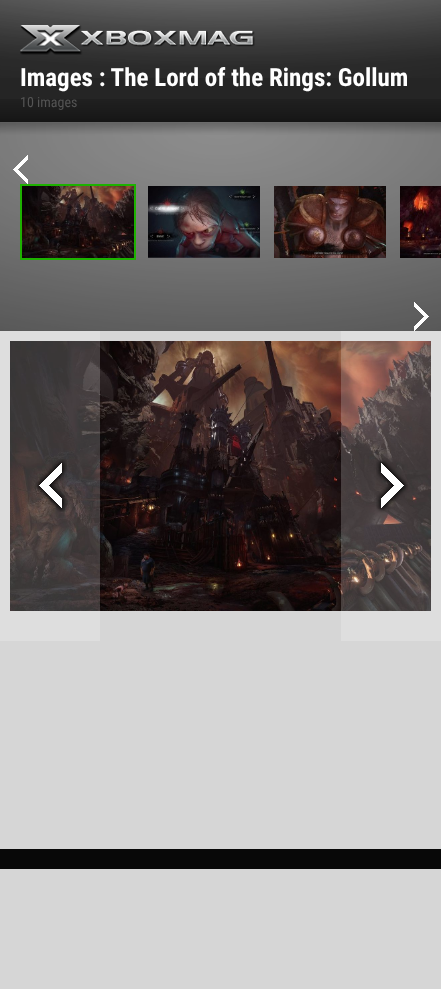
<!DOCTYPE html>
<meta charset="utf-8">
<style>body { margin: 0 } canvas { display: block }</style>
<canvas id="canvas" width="441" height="989"></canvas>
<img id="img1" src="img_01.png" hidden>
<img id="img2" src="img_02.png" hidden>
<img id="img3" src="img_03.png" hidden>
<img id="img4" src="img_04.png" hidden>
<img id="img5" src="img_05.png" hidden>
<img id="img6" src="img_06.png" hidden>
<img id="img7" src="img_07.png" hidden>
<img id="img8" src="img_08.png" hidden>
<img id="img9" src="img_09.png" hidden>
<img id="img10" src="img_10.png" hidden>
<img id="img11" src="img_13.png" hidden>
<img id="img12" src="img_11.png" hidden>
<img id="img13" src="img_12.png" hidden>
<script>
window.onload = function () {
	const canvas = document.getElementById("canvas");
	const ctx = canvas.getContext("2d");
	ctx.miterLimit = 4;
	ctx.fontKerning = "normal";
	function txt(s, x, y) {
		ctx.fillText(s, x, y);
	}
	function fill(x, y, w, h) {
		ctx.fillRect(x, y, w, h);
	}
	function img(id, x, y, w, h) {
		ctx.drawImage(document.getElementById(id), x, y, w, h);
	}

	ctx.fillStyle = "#D6D6D6";
	fill(0, 0, 441, 989);
	ctx.fillStyle = "#252525";
	fill(0, 0, 441, 99);
	img("img1", 0, 99, 441, 23);
	img("img2", 0, 0, 441, 78);
	img("img3", 20, 25, 235, 30);
	ctx.fillStyle = "#414141";
	fill(0, 122, 441, 209);
	img("img4", 0, 122, 441, 209);
	img("img5", 13, 155, 15, 29);
	ctx.strokeStyle = "#1DB100";
	ctx.lineWidth = 2;
	ctx.strokeRect(21, 185, 114, 74);
	img("img6", 22, 186, 112, 72);
	img("img7", 148, 186, 112, 72);
	img("img8", 274, 186, 112, 72);
	img("img9", 400, 186, 41, 72);
	img("img10", 414, 302, 15, 29);
	img("img11", 10, 341, 421, 270);
	ctx.fillStyle = "rgba(255, 255, 255, 0.2)";
	fill(0, 331, 100, 310);
	img("img12", 35, 459, 32, 53);
	fill(341, 331, 100, 310);
	img("img13", 376, 458, 32, 55);
	ctx.fillStyle = "#080808";
	fill(0, 849, 441, 20);
	ctx.font = "bold 25px Roboto Condensed";
	ctx.fillStyle = "#FFFFFF";
	txt("Images : The Lord of the Rings: Gollum", 20, 86);
	ctx.font = "14px Roboto Condensed";
	ctx.fillStyle = "#545454";
	txt("10 images", 20, 107);
};
</script>
